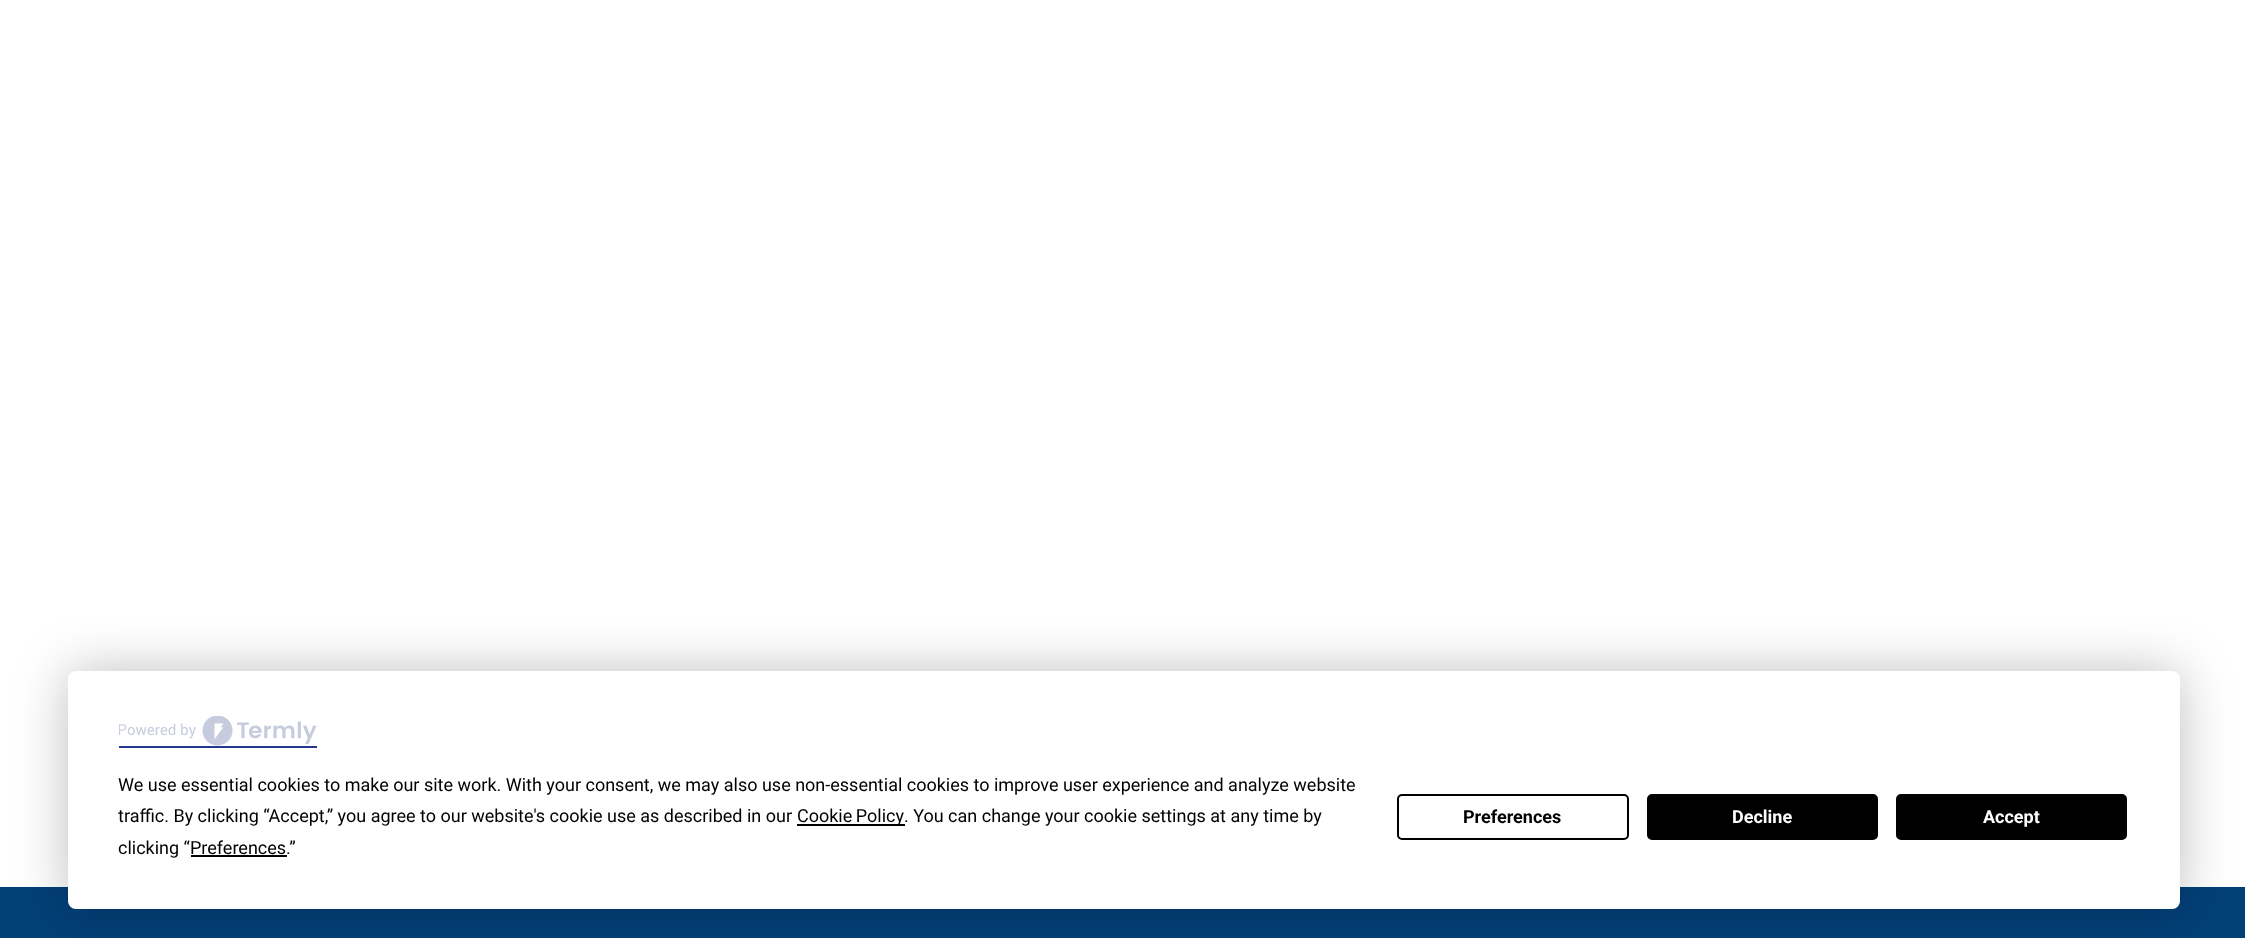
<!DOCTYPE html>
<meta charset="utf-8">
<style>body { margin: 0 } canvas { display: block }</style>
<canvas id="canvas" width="2245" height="938"></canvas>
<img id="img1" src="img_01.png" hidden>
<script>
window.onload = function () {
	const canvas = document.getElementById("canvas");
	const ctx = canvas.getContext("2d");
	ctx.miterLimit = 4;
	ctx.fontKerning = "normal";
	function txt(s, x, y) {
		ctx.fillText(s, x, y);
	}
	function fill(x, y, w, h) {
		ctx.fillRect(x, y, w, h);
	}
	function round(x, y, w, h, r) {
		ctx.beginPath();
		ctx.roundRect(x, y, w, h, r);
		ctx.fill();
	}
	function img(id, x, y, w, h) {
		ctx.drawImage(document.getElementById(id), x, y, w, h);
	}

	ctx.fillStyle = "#FFFFFF";
	fill(0, 0, 2245, 938);
	ctx.fillStyle = "#034078";
	fill(0, 887, 2245, 51);
	ctx.fillStyle = "rgba(0, 0, 0, 0.25)";
	ctx.filter = "blur(26px)";
	ctx.beginPath();
	ctx.roundRect(68, 671, 2112, 238, 8);
	ctx.fill();
	ctx.filter = "none";
	ctx.fillStyle = "#FFFFFF";
	round(68, 671, 2112, 238, 8);
	ctx.fillStyle = "#24398D";
	fill(119, 746, 198, 2);
	img("img1", 119, 716, 198, 30);
	ctx.fillStyle = "#000000";
	fill(797, 824, 108, 2);
	fill(191, 855, 96, 2);
	ctx.beginPath();
	ctx.roundRect(1398, 795, 230, 44, 4);
	ctx.strokeStyle = "#000000";
	ctx.lineWidth = 2;
	ctx.stroke();
	ctx.beginPath();
	ctx.roundRect(1648, 795, 229, 44, 4);
	ctx.fill();
	ctx.stroke();
	ctx.beginPath();
	ctx.roundRect(1897, 795, 229, 44, 4);
	ctx.fill();
	ctx.stroke();
	ctx.font = "18px Roboto";
	txt("We use essential cookies to make our site work. With your consent, we may also use non-essential cookies to improve user experience and analyze website", 118, 791);
	txt("traffic. By clicking “Accept,” you agree to our website's cookie use as described in our", 118, 822);
	ctx.wordSpacing = "-1px";
	txt("Cookie Policy", 797, 822);
	ctx.wordSpacing = "0px";
	txt(". You can change your cookie settings at any time by", 904, 822);
	txt("clicking “Preferences.”", 118, 854);
	ctx.font = "bold 18px Roboto";
	txt("Preferences", 1463, 823);
	ctx.fillStyle = "#FFFFFF";
	txt("Decline", 1732, 823);
	txt("Accept", 1983, 823);
};
</script>
